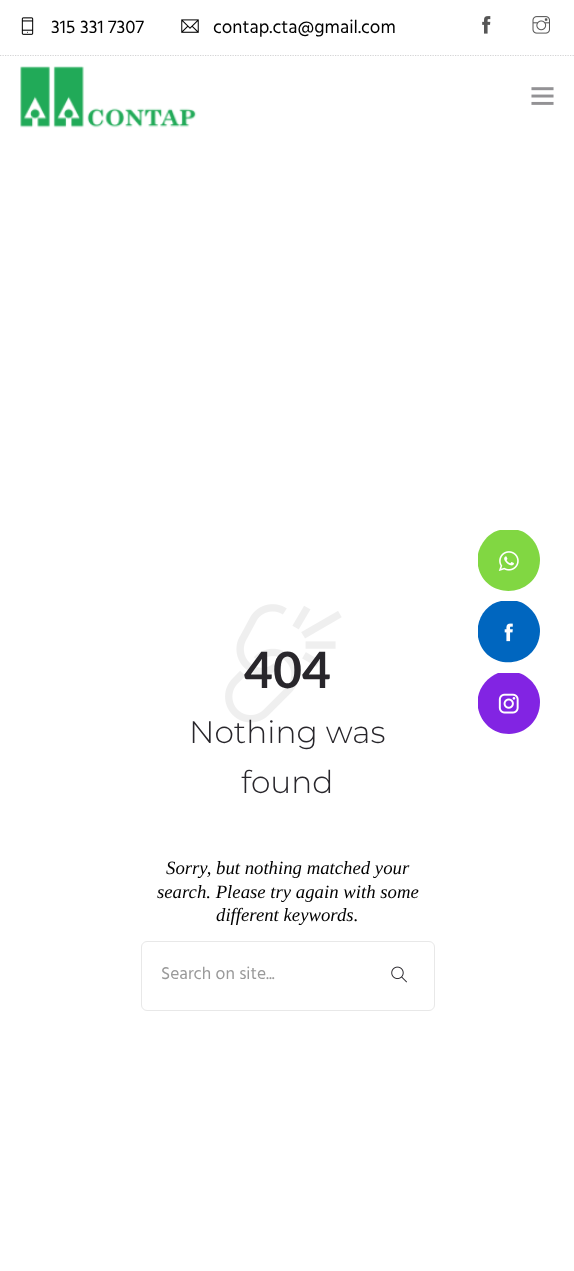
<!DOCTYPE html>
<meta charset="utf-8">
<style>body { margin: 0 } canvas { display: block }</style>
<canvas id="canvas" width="574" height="1271"></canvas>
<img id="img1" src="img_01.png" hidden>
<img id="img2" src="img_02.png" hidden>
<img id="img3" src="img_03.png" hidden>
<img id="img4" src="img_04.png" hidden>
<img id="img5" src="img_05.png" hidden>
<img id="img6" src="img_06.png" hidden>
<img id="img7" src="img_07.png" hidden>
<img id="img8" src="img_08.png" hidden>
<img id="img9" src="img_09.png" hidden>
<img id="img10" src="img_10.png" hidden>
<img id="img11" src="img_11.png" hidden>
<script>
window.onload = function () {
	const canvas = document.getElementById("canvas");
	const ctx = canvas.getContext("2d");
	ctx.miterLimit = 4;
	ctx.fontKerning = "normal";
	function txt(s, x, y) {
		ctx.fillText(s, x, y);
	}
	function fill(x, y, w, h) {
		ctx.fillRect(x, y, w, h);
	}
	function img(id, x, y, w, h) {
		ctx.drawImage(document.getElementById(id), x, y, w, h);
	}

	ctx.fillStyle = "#FFFFFF";
	fill(0, 0, 574, 1271);
	ctx.beginPath();
	ctx.moveTo(0, 55.5);
	ctx.lineTo(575, 55.5);
	ctx.strokeStyle = "#D4D4D5";
	ctx.lineWidth = 1.2;
	ctx.setLineDash([1.25, 1.25]);
	ctx.stroke();
	img("img1", 21, 17, 13, 18);
	img("img2", 181, 19, 18, 14);
	img("img3", 482, 16, 9, 18);
	img("img4", 532, 16, 18, 18);
	img("img5", 20, 66, 177, 62);
	img("img6", 531, 87, 23, 18);
	img("img7", 225, 604, 117, 119);
	ctx.beginPath();
	ctx.roundRect(141.5, 941.5, 293, 69, 5.5);
	ctx.strokeStyle = "#E8E8E8";
	ctx.lineWidth = 1;
	ctx.setLineDash([]);
	ctx.stroke();
	img("img8", 391, 966, 16, 17);
	ctx.fillStyle = "#81D742";
	ctx.beginPath();
	ctx.moveTo(478, 554);
	ctx.bezierCurveTo(480, 544, 489, 532, 500, 530);
	ctx.lineTo(518, 530);
	ctx.bezierCurveTo(531, 533, 540, 547, 540, 560);
	ctx.bezierCurveTo(539, 598, 485, 602, 478, 566);
	ctx.closePath();
	ctx.fill();
	img("img9", 498, 551, 21, 20);
	ctx.fillStyle = "#0066BF";
	ctx.beginPath();
	ctx.moveTo(478, 626);
	ctx.bezierCurveTo(480, 614, 489, 603, 501, 601);
	ctx.lineTo(517, 601);
	ctx.bezierCurveTo(530, 604, 540, 618, 540, 631);
	ctx.bezierCurveTo(539, 669, 485, 674, 478, 637);
	ctx.closePath();
	ctx.fill();
	img("img10", 504, 623, 9, 19);
	ctx.fillStyle = "#8224E3";
	ctx.beginPath();
	ctx.moveTo(478, 697);
	ctx.bezierCurveTo(480, 686, 488, 677, 498, 673);
	ctx.lineTo(519, 673);
	ctx.bezierCurveTo(531, 677, 540, 689, 540, 702);
	ctx.bezierCurveTo(540, 720, 526, 734, 509, 734);
	ctx.bezierCurveTo(493, 734, 481, 723, 478, 708);
	ctx.closePath();
	ctx.fill();
	img("img11", 498, 693, 21, 21);
	ctx.font = "18.75px Hind";
	ctx.fillStyle = "#000000";
	txt("315 331 7307", 51, 33);
	txt("contap.cta@gmail.com", 213, 33);
	ctx.font = "bold 50px Lato";
	ctx.fillStyle = "#28262B";
	txt("404", 244, 688);
	ctx.font = "300 31.25px Montserrat";
	txt("Nothing was", 189, 743);
	txt("found", 241, 793);
	ctx.font = "italic 18.75px Liberation Serif";
	ctx.fillStyle = "#000000";
	txt("Sorry, but nothing matched your", 166, 874);
	txt("search. Please try again with some", 157, 898);
	txt("different keywords.", 216, 921);
	ctx.font = "17.5px Hind";
	ctx.fillStyle = "#999999";
	txt("Search on site...", 161, 979);
};
</script>
